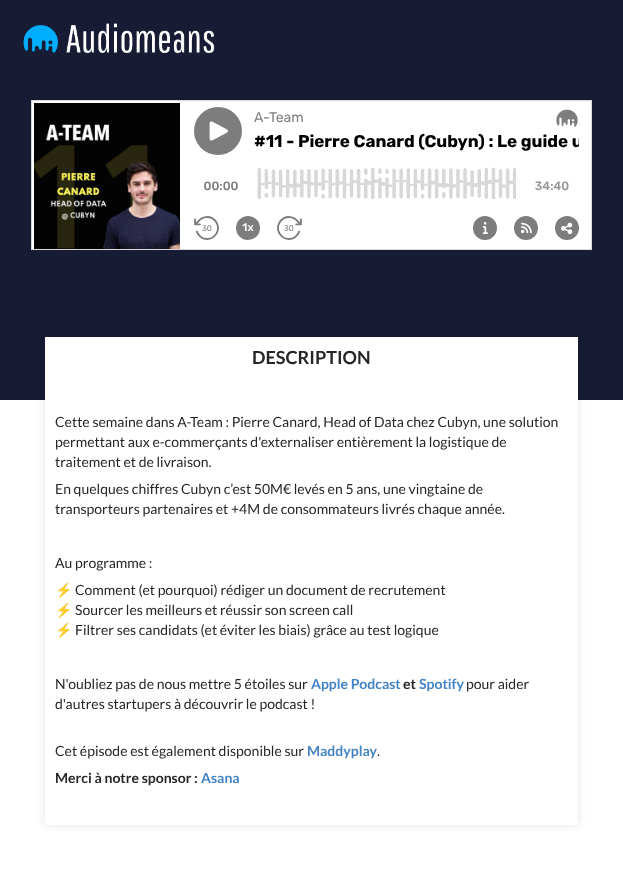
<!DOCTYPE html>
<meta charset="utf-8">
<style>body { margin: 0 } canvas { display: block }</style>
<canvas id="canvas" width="623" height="882"></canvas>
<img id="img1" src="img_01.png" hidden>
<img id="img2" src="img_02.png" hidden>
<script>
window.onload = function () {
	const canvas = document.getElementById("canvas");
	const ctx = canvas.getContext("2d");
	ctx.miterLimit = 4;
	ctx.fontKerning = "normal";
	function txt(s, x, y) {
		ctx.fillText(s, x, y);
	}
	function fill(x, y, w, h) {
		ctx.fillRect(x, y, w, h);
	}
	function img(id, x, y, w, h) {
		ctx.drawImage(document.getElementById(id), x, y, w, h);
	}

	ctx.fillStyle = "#FFFFFF";
	fill(0, 0, 623, 882);
	ctx.fillStyle = "#171B34";
	fill(0, 0, 623, 400);
	img("img1", 23, 23, 192, 30);
	img("img2", 31, 100, 561, 150);
	ctx.fillStyle = "rgba(0, 0, 0, 0.1)";
	ctx.filter = "blur(5px)";
	ctx.beginPath();
	ctx.rect(45, 337, 533, 488);
	ctx.fill();
	ctx.filter = "none";
	ctx.fillStyle = "#FFFFFF";
	fill(45, 337, 533, 488);
	ctx.font = "bold 18px Lato";
	ctx.fillStyle = "#262626";
	txt("DESCRIPTION", 252, 364);
	ctx.font = "14px Lato";
	txt("Cette semaine dans A-Team : Pierre Canard, Head of Data chez Cubyn, une solution", 55, 427);
	txt("permettant aux e-commerçants d'externaliser entièrement la logistique de", 55, 447);
	txt("traitement et de livraison.", 55, 467);
	txt("En quelques chiffres Cubyn c’est 50M€ levés en 5 ans, une vingtaine de", 55, 494);
	txt("transporteurs partenaires et +4M de consommateurs livrés chaque année.", 55, 514);
	txt("Au programme :", 55, 568);
	ctx.font = "14px Noto Color Emoji";
	txt("⚡️", 55, 595);
	ctx.font = "14px Lato";
	txt("Comment (et pourquoi) rédiger un document de recrutement", 75, 595);
	ctx.font = "14px Noto Color Emoji";
	txt("⚡️", 55, 615);
	ctx.font = "14px Lato";
	txt("Sourcer les meilleurs et réussir son screen call", 75, 615);
	ctx.font = "14px Noto Color Emoji";
	txt("⚡", 55, 635);
	ctx.font = "14px Lato";
	txt("Filtrer ses candidats (et éviter les biais) grâce au test logique", 75, 635);
	txt("N'oubliez pas de nous mettre 5 étoiles sur", 55, 689);
	ctx.font = "bold 14px Lato";
	ctx.fillStyle = "#4183C4";
	txt("Apple Podcast", 311, 689);
	ctx.fillStyle = "#262626";
	txt("et", 403, 689);
	ctx.fillStyle = "#4183C4";
	txt("Spotify", 419, 689);
	ctx.font = "14px Lato";
	ctx.fillStyle = "#262626";
	txt("pour aider", 466, 689);
	txt("d'autres startupers à découvrir le podcast !", 55, 709);
	txt("Cet épisode est également disponible sur", 55, 756);
	ctx.font = "bold 14px Lato";
	ctx.fillStyle = "#4183C4";
	txt("Maddyplay", 307, 756);
	ctx.font = "14px Lato";
	ctx.fillStyle = "#262626";
	txt(".", 377, 756);
	ctx.font = "bold 14px Lato";
	txt("Merci à notre sponsor :", 55, 783);
	ctx.fillStyle = "#4183C4";
	txt("Asana", 201, 783);
};
</script>
